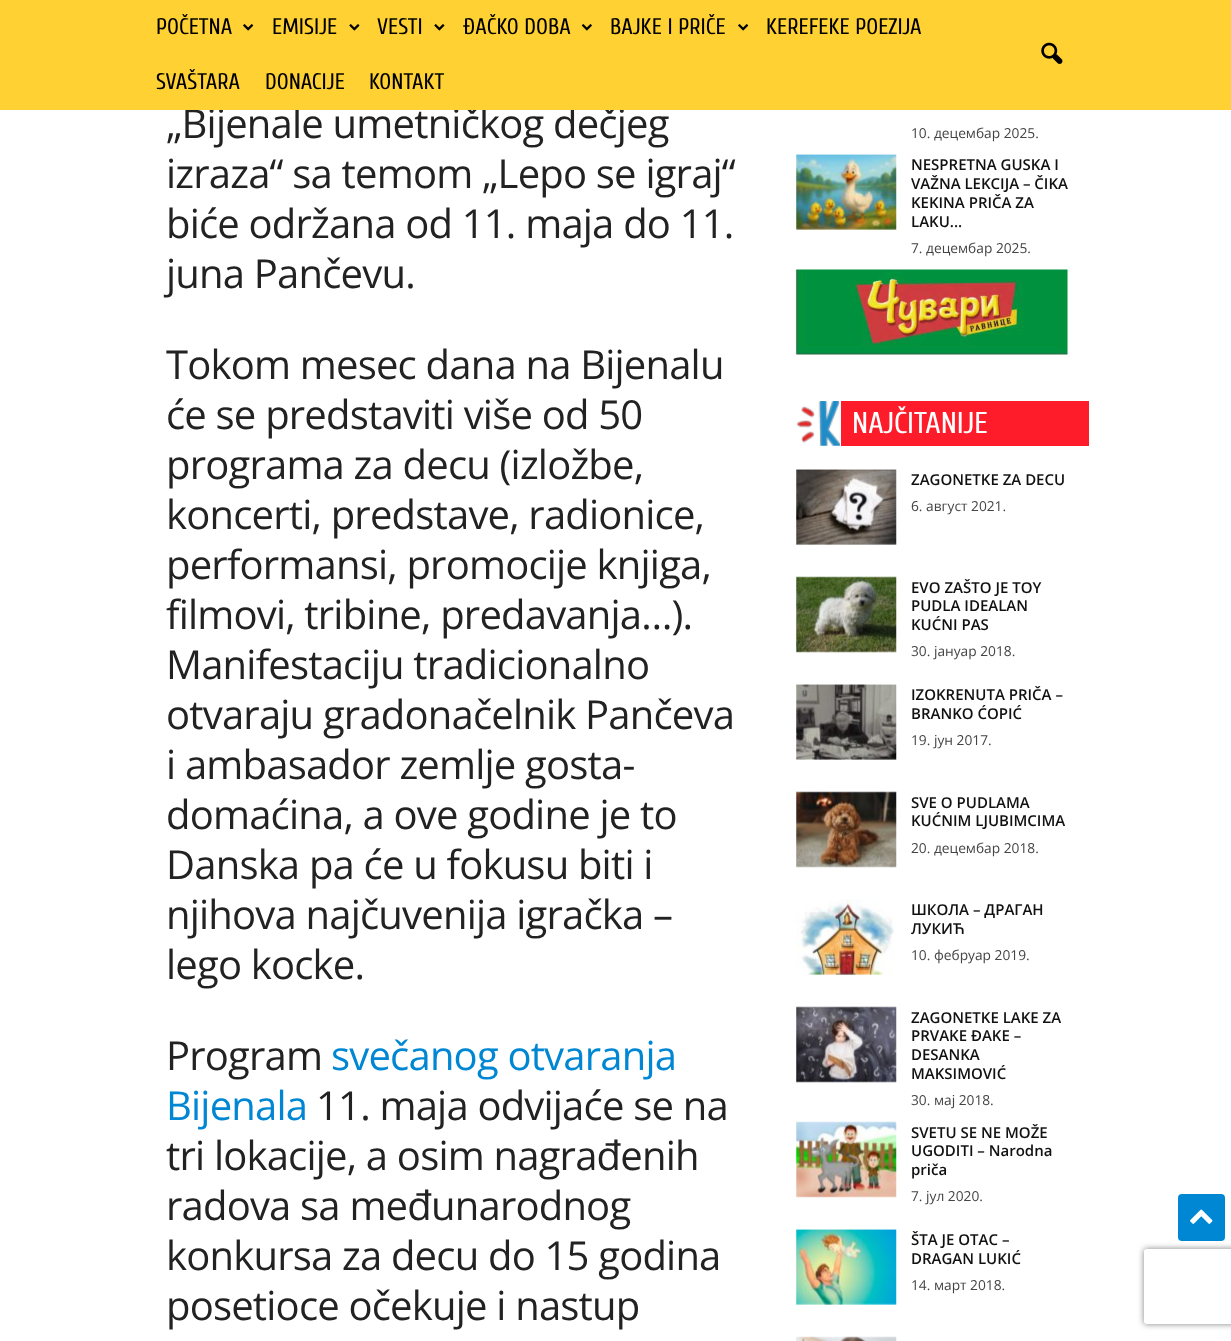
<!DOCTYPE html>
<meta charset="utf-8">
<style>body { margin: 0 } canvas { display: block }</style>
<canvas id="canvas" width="1231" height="1341"></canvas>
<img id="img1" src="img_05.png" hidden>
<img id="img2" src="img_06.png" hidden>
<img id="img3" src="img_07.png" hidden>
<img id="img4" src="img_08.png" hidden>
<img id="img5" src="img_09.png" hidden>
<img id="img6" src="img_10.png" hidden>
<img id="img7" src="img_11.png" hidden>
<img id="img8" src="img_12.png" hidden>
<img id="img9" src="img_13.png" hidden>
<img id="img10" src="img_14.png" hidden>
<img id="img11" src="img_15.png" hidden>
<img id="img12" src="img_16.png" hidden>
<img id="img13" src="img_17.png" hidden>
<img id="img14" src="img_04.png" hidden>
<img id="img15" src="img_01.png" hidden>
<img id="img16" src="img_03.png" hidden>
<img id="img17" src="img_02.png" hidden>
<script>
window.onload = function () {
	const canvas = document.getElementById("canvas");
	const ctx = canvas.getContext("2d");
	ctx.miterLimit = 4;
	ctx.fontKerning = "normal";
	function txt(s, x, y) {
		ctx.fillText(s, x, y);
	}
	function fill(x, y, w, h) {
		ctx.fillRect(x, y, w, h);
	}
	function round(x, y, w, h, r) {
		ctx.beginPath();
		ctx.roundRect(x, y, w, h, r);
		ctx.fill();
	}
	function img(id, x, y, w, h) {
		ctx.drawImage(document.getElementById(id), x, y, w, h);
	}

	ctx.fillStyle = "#FFFFFF";
	fill(0, 0, 1231, 1341);
	img("img1", 796, 154, 101, 76);
	img("img2", 795, 269, 273, 86);
	ctx.fillStyle = "#FE1C2A";
	fill(841, 401, 248, 45);
	img("img3", 797, 401, 43, 45);
	img("img4", 796, 469, 101, 76);
	img("img5", 796, 576, 101, 77);
	img("img6", 796, 684, 101, 76);
	img("img7", 796, 791, 101, 77);
	img("img8", 796, 899, 98, 76);
	img("img9", 796, 1006, 101, 77);
	img("img10", 796, 1121, 101, 77);
	img("img11", 796, 1229, 101, 76);
	img("img12", 796, 1336, 101, 5);
	ctx.save();
	ctx.beginPath();
	ctx.moveTo(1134, 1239);
	ctx.lineTo(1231, 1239);
	ctx.lineTo(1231, 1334);
	ctx.lineTo(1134, 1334);
	ctx.closePath();
	ctx.moveTo(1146.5, 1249);
	ctx.lineTo(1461.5, 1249);
	ctx.bezierCurveTo(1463, 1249, 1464, 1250, 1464, 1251.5);
	ctx.lineTo(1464, 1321.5);
	ctx.bezierCurveTo(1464, 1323, 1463, 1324, 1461.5, 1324);
	ctx.lineTo(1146.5, 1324);
	ctx.bezierCurveTo(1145, 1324, 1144, 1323, 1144, 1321.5);
	ctx.lineTo(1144, 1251.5);
	ctx.bezierCurveTo(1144, 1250, 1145, 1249, 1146.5, 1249);
	ctx.closePath();
	ctx.clip("evenodd");
	ctx.fillStyle = "#808080";
	ctx.filter = "blur(3px)";
	ctx.beginPath();
	ctx.roundRect(1144, 1249, 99, 75, 2.5);
	ctx.fill();
	ctx.filter = "none";
	ctx.restore();
	ctx.fillStyle = "#0087D3";
	round(1178, 1194, 47, 47, 4);
	img("img13", 1190, 1209, 23, 15);
	ctx.letterSpacing = "-0.8px";
	ctx.font = "40px Open Sans";
	ctx.fillStyle = "#222222";
	txt("„Bijenale umetničkog dečjeg", 166, 138);
	ctx.fillStyle = "#FFD133";
	fill(0, 0, 1231, 110);
	img("img14", 1041, 42, 22, 22);
	ctx.letterSpacing = "0px";
	ctx.font = "22.5px Cuprum";
	ctx.fillStyle = "#000000";
	txt("KONTAKT", 369, 89);
	txt("DONACIJE", 265, 89);
	txt("SVAŠTARA", 156, 89);
	txt("KEREFEKE POEZIJA", 766, 34);
	img("img15", 738, 24, 11, 7);
	txt("BAJKE I PRIČE", 610, 34);
	img("img16", 581, 24, 11, 7);
	txt("ĐAČKO DOBA", 463, 34);
	img("img17", 434, 24, 11, 7);
	txt("VESTI", 377, 34);
	img("img17", 349, 24, 11, 7);
	txt("EMISIJE", 272, 34);
	img("img15", 243, 24, 11, 7);
	txt("POČETNA", 156, 34);
	ctx.letterSpacing = "-0.8px";
	ctx.font = "40px Open Sans";
	ctx.fillStyle = "#222222";
	txt("izraza“ sa temom „Lepo se igraj“", 166, 188);
	txt("biće održana od 11. maja do 11.", 166, 238);
	txt("juna Pančevu.", 166, 288);
	txt("Tokom mesec dana na Bijenalu", 166, 379);
	txt("će se predstaviti više od 50", 166, 429);
	txt("programa za decu (izložbe,", 166, 479);
	txt("koncerti, predstave, radionice,", 166, 529);
	txt("performansi, promocije knjiga,", 166, 579);
	txt("filmovi, tribine, predavanja…).", 166, 629);
	txt("Manifestaciju tradicionalno", 166, 679);
	txt("otvaraju gradonačelnik Pančeva", 166, 729);
	txt("i ambasador zemlje gosta-", 166, 779);
	txt("domaćina, a ove godine je to", 166, 829);
	txt("Danska pa će u fokusu biti i", 166, 879);
	txt("njihova najčuvenija igračka –", 166, 929);
	txt("lego kocke.", 166, 979);
	txt("Program", 166, 1070);
	ctx.fillStyle = "#0087D3";
	txt("svečanog otvaranja", 331, 1070);
	txt("Bijenala", 166, 1120);
	ctx.fillStyle = "#222222";
	txt("11. maja odvijaće se na", 316, 1120);
	txt("tri lokacije, a osim nagrađenih", 166, 1170);
	txt("radova sa međunarodnog", 166, 1220);
	txt("konkursa za decu do 15 godina", 166, 1270);
	txt("posetioce očekuje i nastup", 166, 1320);
	ctx.letterSpacing = "0px";
	ctx.font = "13.75px Open Sans";
	ctx.fillStyle = "#444444";
	txt("10. децембар 2025.", 911, 138);
	ctx.font = "600 15px Open Sans";
	ctx.fillStyle = "#111111";
	txt("NESPRETNA GUSKA I", 911, 170);
	txt("VAŽNA LEKCIJA – ČIKA", 911, 189);
	txt("KEKINA PRIČA ZA", 911, 208);
	txt("LAKU...", 911, 227);
	ctx.font = "13.75px Open Sans";
	ctx.fillStyle = "#444444";
	txt("7. децембар 2025.", 911, 253);
	ctx.font = "30px Cuprum";
	ctx.fillStyle = "#FFFFFF";
	txt("NAJČITANIJE", 852, 433);
	ctx.font = "600 15px Open Sans";
	ctx.fillStyle = "#111111";
	txt("ZAGONETKE ZA DECU", 911, 485);
	ctx.font = "13.75px Open Sans";
	ctx.fillStyle = "#444444";
	txt("6. август 2021.", 911, 511);
	ctx.font = "600 15px Open Sans";
	ctx.fillStyle = "#111111";
	txt("EVO ZAŠTO JE TOY", 911, 593);
	txt("PUDLA IDEALAN", 911, 611);
	txt("KUĆNI PAS", 911, 630);
	ctx.font = "13.75px Open Sans";
	ctx.fillStyle = "#444444";
	txt("30. јануар 2018.", 911, 656);
	ctx.font = "600 15px Open Sans";
	ctx.fillStyle = "#111111";
	txt("IZOKRENUTA PRIČA –", 911, 700);
	txt("BRANKO ĆOPIĆ", 911, 719);
	ctx.font = "13.75px Open Sans";
	ctx.fillStyle = "#444444";
	txt("19. јун 2017.", 911, 745);
	ctx.font = "600 15px Open Sans";
	ctx.fillStyle = "#111111";
	txt("SVE O PUDLAMA", 911, 808);
	txt("KUĆNIM LJUBIMCIMA", 911, 826);
	ctx.font = "13.75px Open Sans";
	ctx.fillStyle = "#444444";
	txt("20. децембар 2018.", 911, 853);
	ctx.font = "600 15px Open Sans";
	ctx.fillStyle = "#111111";
	txt("ШКОЛА – ДРАГАН", 911, 915);
	txt("ЛУКИЋ", 911, 934);
	ctx.font = "13.75px Open Sans";
	ctx.fillStyle = "#444444";
	txt("10. фебруар 2019.", 911, 960);
	ctx.font = "600 15px Open Sans";
	ctx.fillStyle = "#111111";
	txt("ZAGONETKE LAKE ZA", 911, 1023);
	txt("PRVAKE ĐAKE –", 911, 1041);
	txt("DESANKA", 911, 1060);
	txt("MAKSIMOVIĆ", 911, 1079);
	ctx.font = "13.75px Open Sans";
	ctx.fillStyle = "#444444";
	txt("30. мај 2018.", 911, 1105);
	ctx.font = "600 15px Open Sans";
	ctx.fillStyle = "#111111";
	txt("SVETU SE NE MOŽE", 911, 1138);
	txt("UGODITI – Narodna", 911, 1156);
	txt("priča", 911, 1175);
	ctx.font = "13.75px Open Sans";
	ctx.fillStyle = "#444444";
	txt("7. јул 2020.", 911, 1201);
	ctx.font = "600 15px Open Sans";
	ctx.fillStyle = "#111111";
	txt("ŠTA JE OTAC –", 911, 1245);
	txt("DRAGAN LUKIĆ", 911, 1264);
	ctx.font = "13.75px Open Sans";
	ctx.fillStyle = "#444444";
	txt("14. март 2018.", 911, 1290);
};
</script>
